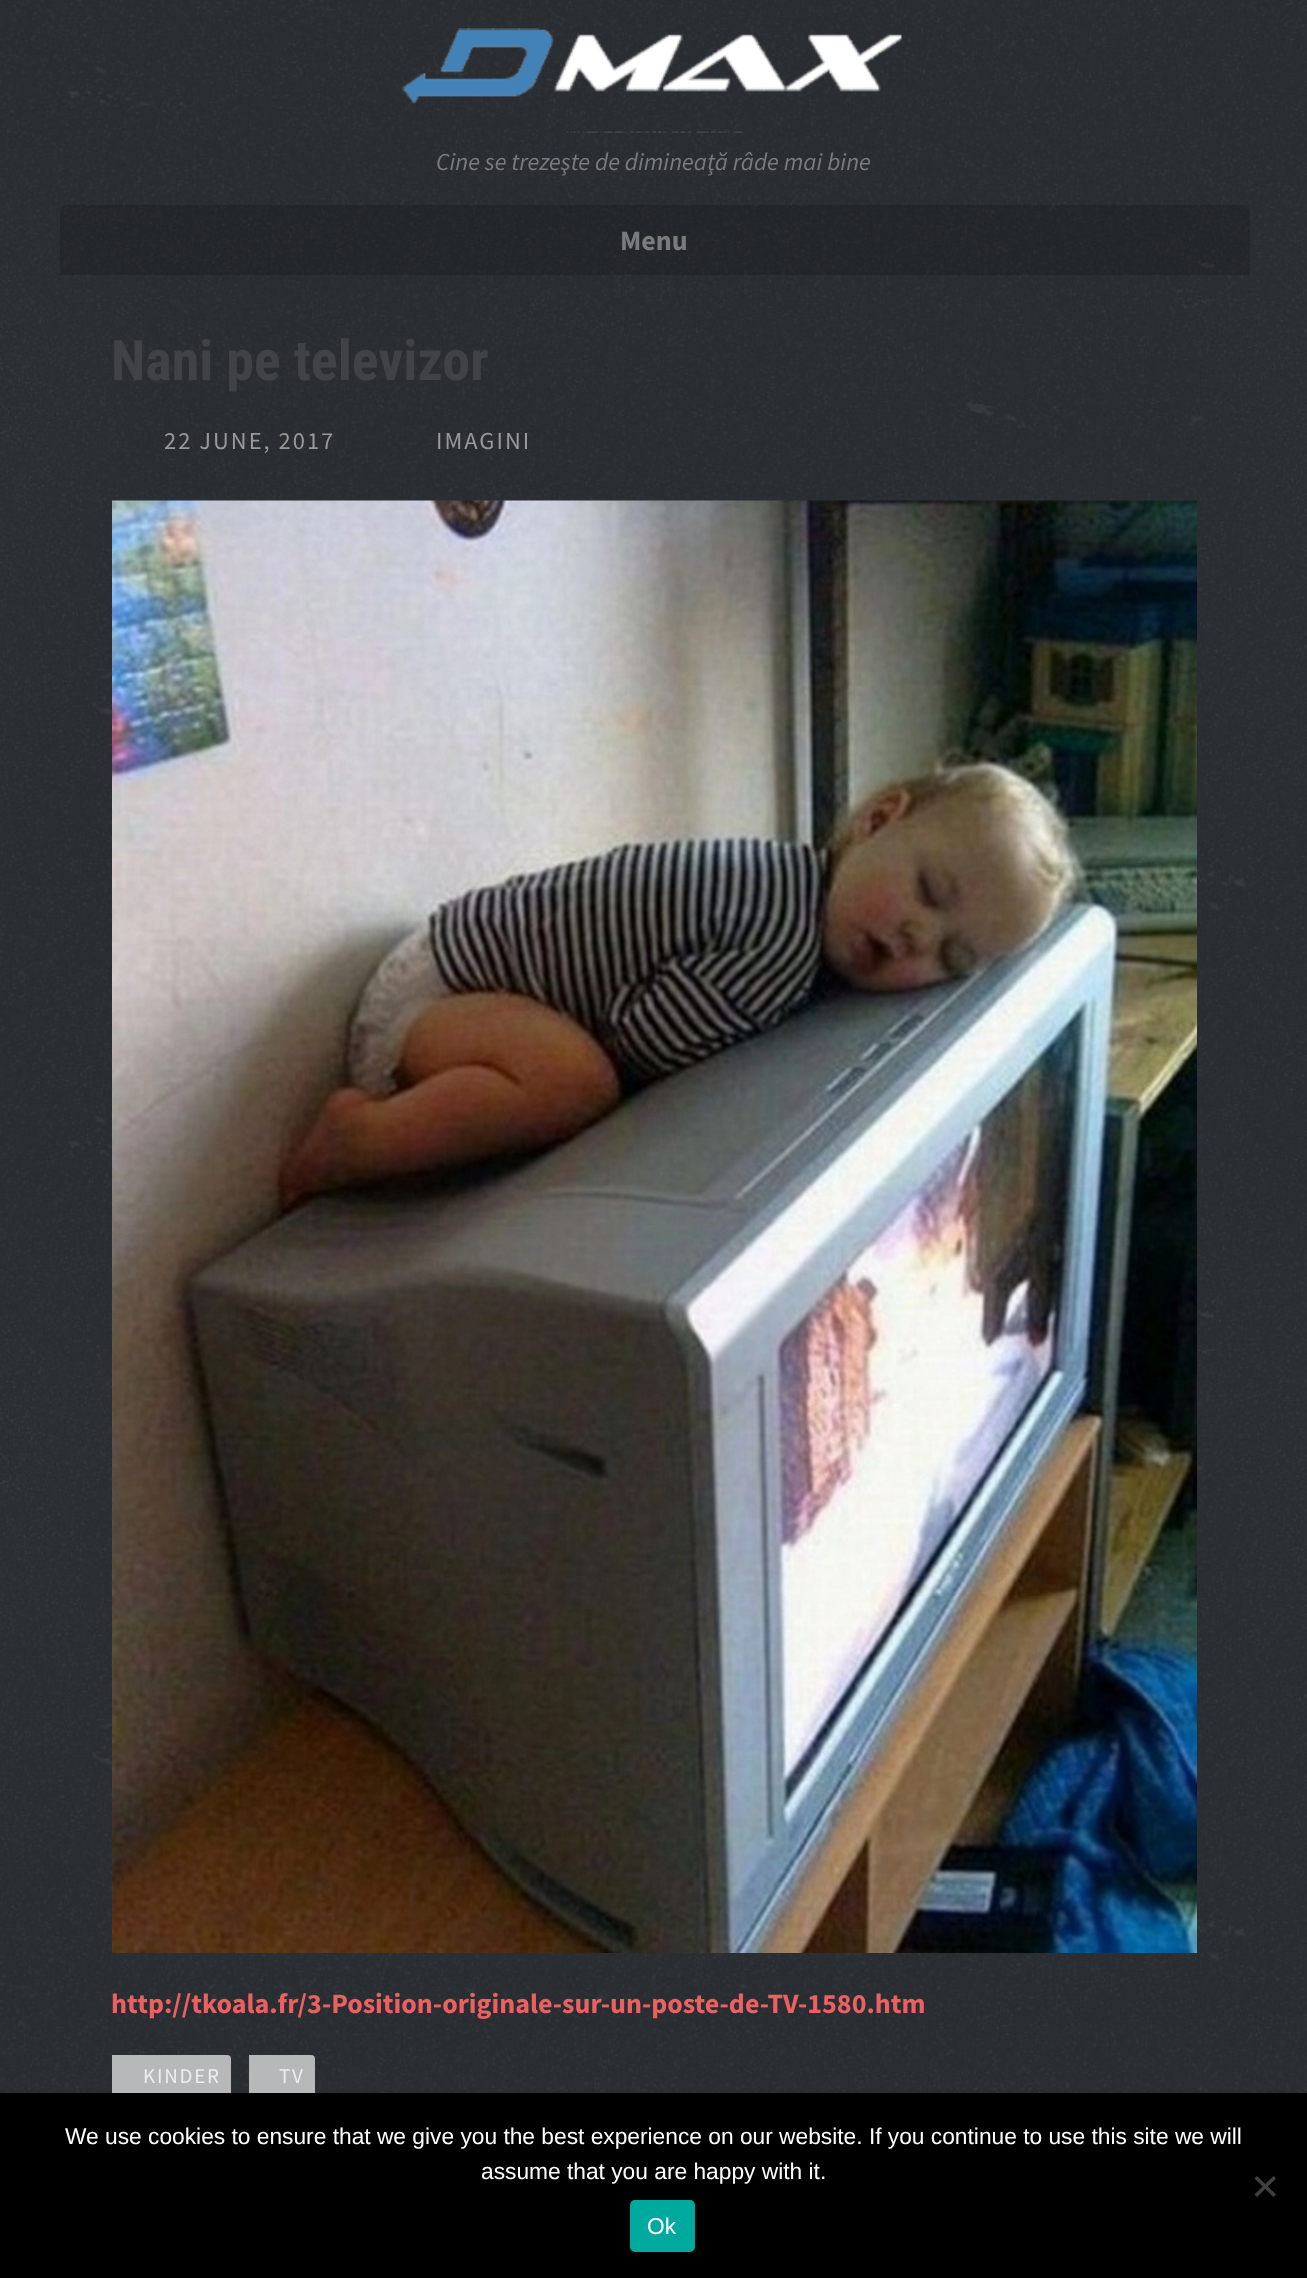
<!DOCTYPE html>
<meta charset="utf-8">
<style>body { margin: 0 } canvas { display: block }</style>
<canvas id="canvas" width="1307" height="2278"></canvas>
<img id="img1" src="img_01.png" hidden>
<img id="img2" src="img_02.png" hidden>
<img id="img3" src="img_03.png" hidden>
<img id="img4" src="img_04.png" hidden>
<script>
window.onload = function () {
	const canvas = document.getElementById("canvas");
	const ctx = canvas.getContext("2d");
	ctx.miterLimit = 4;
	ctx.fontKerning = "normal";
	function txt(s, x, y) {
		ctx.fillText(s, x, y);
	}
	function fill(x, y, w, h) {
		ctx.fillRect(x, y, w, h);
	}
	function round(x, y, w, h, r) {
		ctx.beginPath();
		ctx.roundRect(x, y, w, h, r);
		ctx.fill();
	}
	function img(id, x, y, w, h) {
		ctx.drawImage(document.getElementById(id), x, y, w, h);
	}

	ctx.fillStyle = "#FFFFFF";
	fill(0, 0, 1307, 2278);
	img("img1", 0, 0, 1307, 2093);
	img("img2", 402, 28, 500, 76);
	img("img3", 567, 131, 175, 2);
	ctx.fillStyle = "rgba(0, 0, 0, 0.15)";
	ctx.beginPath();
	ctx.roundRect(60, 205, 1190, 70, [7, 7, 0, 0]);
	ctx.fill();
	img("img4", 112, 500, 1085, 1453);
	ctx.fillStyle = "#B6B8BA";
	ctx.beginPath();
	ctx.roundRect(112, 2055, 119, 42, [0, 4, 4, 0]);
	ctx.fill();
	ctx.beginPath();
	ctx.roundRect(249, 2055, 66, 42, [0, 4, 4, 0]);
	ctx.fill();
	ctx.fillStyle = "#000000";
	fill(0, 2093, 1307, 185);
	ctx.fillStyle = "#404040";
	ctx.beginPath();
	ctx.moveTo(1273.5, 2176);
	ctx.lineTo(1276, 2178.5);
	ctx.lineTo(1257, 2197);
	ctx.lineTo(1254.5, 2194.5);
	ctx.closePath();
	ctx.fill();
	ctx.beginPath();
	ctx.moveTo(1254.5, 2178.5);
	ctx.lineTo(1257, 2176);
	ctx.lineTo(1276, 2194.5);
	ctx.lineTo(1273.5, 2197);
	ctx.closePath();
	ctx.fill();
	ctx.fillStyle = "#00A99D";
	round(630, 2200, 65, 52, 5);
	ctx.font = "italic 24.5px Source Sans Pro";
	ctx.fillStyle = "#7B7B7D";
	txt("Cine se trezeşte de dimineaţă râde mai bine", 436, 170);
	ctx.font = "bold 28px Source Sans Pro";
	txt("Menu", 620, 250);
	ctx.font = "bold 56px Roboto Condensed";
	ctx.fillStyle = "#404248";
	txt("Nani pe televizor", 111, 380);
	ctx.letterSpacing = "2px";
	ctx.font = "24.5px Source Sans Pro";
	ctx.fillStyle = "#999999";
	txt("22 JUNE, 2017", 164, 449);
	txt("IMAGINI", 436, 449);
	ctx.letterSpacing = "0px";
	ctx.font = "bold 28px Source Sans Pro";
	ctx.fillStyle = "#EA6161";
	txt("http://tkoala.fr/3-Position-originale-sur-un-poste-de-TV-1580.htm", 111, 2013);
	ctx.letterSpacing = "1.75px";
	ctx.font = "21px Source Sans Pro";
	ctx.fillStyle = "#EEEEEE";
	txt("KINDER", 143, 2083);
	txt("TV", 279, 2083);
	ctx.letterSpacing = "0px";
	ctx.font = "22.75px Liberation Sans";
	ctx.fillStyle = "#FFFFFF";
	txt("We use cookies to ensure that we give you the best experience on our website. If you continue to use this site we will", 65, 2144);
	txt("assume that you are happy with it.", 481, 2179);
	txt("Ok", 647, 2234);
};
</script>
